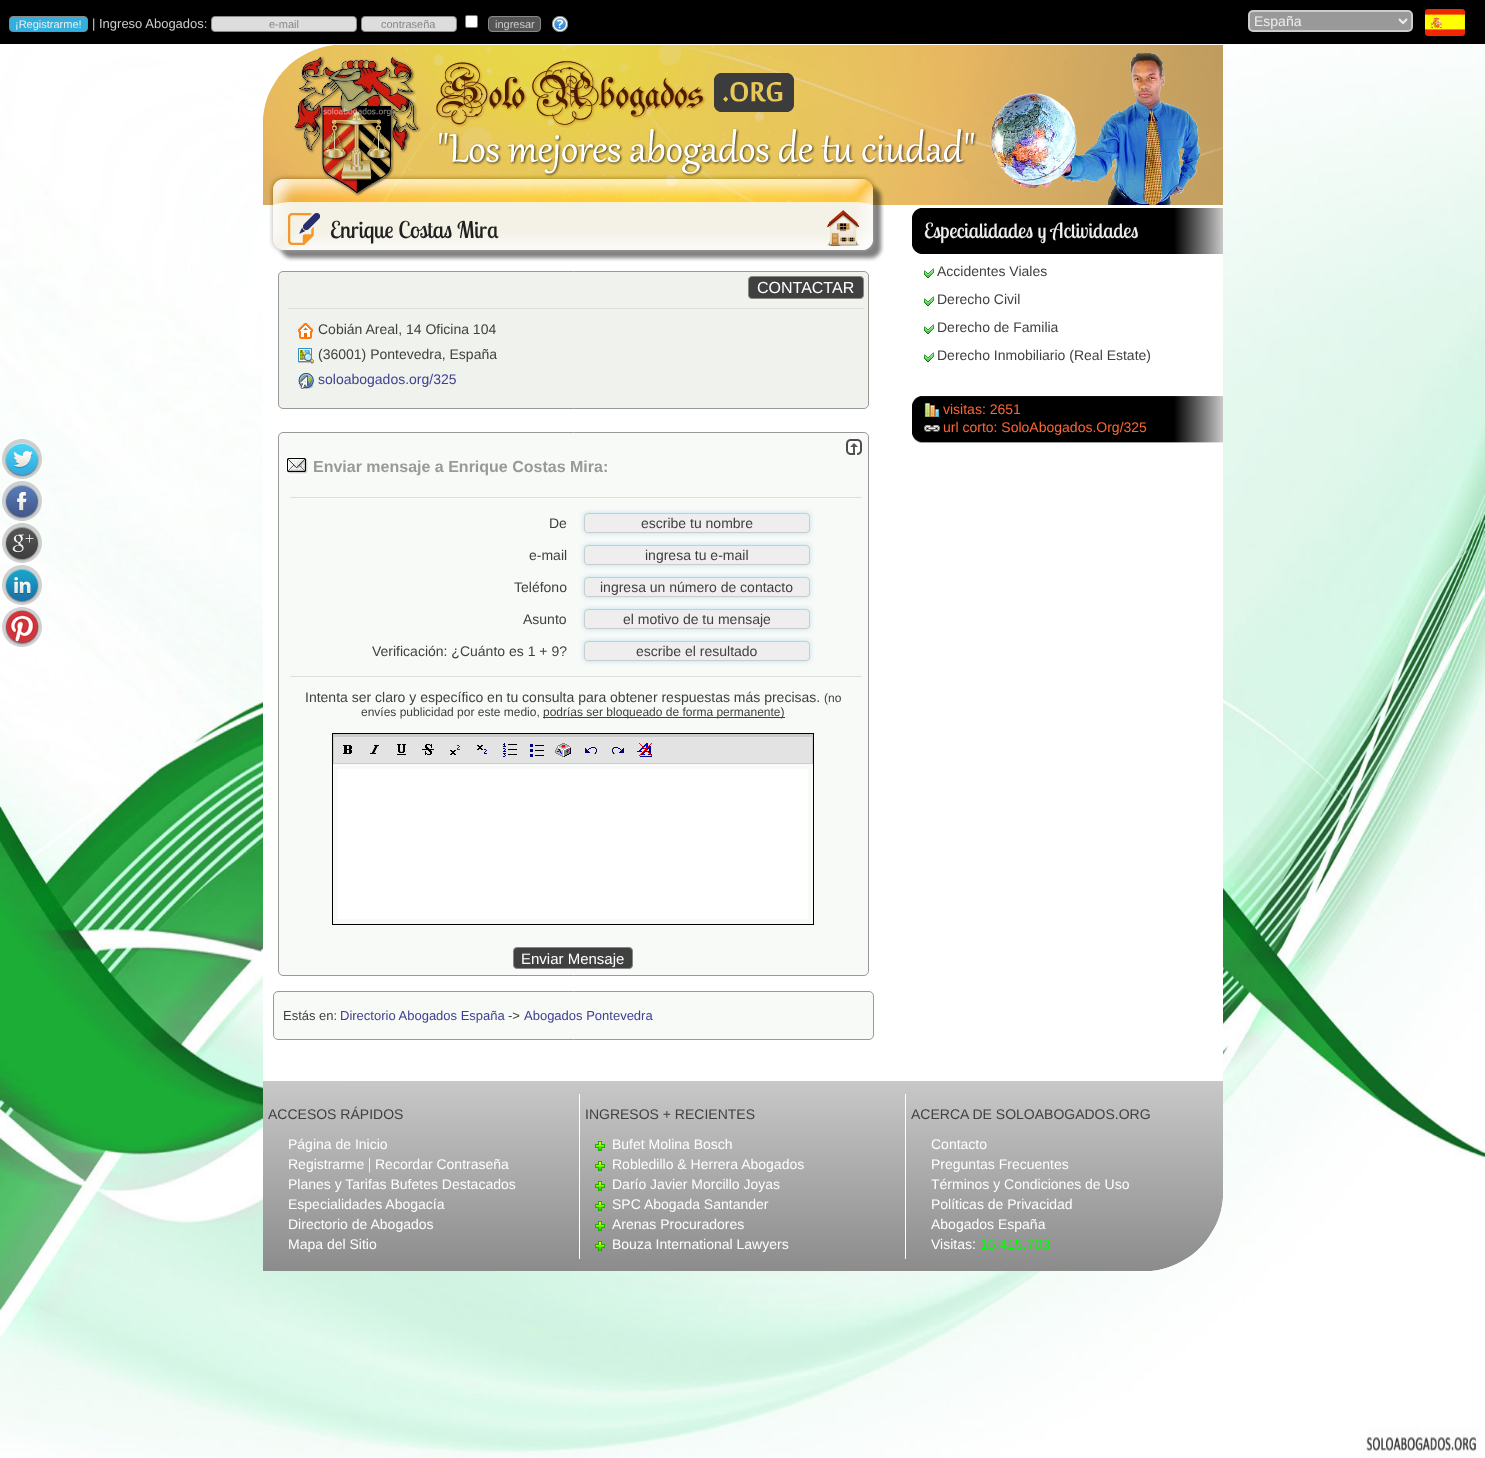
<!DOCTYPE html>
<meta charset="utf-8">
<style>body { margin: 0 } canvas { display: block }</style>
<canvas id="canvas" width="1485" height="1458"></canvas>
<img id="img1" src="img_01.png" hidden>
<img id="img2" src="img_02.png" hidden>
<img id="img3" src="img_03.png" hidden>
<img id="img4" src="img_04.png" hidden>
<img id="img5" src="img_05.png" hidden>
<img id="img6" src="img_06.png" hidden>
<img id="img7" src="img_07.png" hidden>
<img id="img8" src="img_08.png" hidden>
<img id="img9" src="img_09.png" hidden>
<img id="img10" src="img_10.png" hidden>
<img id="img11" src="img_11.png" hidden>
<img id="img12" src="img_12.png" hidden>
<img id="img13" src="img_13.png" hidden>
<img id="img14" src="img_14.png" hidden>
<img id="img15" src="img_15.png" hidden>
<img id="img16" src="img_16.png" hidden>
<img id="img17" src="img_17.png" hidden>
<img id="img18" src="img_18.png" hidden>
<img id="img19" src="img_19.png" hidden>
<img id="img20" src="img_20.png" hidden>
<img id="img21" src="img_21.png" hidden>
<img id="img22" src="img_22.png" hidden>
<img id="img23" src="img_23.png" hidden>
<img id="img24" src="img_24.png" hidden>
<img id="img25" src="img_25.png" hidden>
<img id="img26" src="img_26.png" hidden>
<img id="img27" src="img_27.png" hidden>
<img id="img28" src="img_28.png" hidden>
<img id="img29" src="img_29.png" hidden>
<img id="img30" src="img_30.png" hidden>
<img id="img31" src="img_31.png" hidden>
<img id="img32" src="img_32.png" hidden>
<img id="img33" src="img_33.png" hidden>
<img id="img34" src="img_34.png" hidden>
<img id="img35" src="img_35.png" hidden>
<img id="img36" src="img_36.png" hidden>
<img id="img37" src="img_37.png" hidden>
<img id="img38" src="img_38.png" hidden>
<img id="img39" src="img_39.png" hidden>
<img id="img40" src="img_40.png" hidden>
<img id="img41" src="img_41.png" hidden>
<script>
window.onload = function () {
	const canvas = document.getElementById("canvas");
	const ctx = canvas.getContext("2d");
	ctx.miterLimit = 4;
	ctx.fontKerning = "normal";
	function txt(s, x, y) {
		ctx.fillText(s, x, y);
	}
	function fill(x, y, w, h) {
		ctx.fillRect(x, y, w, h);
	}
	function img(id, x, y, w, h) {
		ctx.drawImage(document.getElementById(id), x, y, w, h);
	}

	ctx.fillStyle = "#FFFFFF";
	fill(0, 0, 1485, 1458);
	ctx.fillStyle = "#000000";
	fill(0, 0, 1485, 44);
	ctx.fillStyle = "#33AFDD";
	ctx.beginPath();
	ctx.roundRect(9.5, 16.5, 78, 15, 3.5);
	ctx.fill();
	ctx.strokeStyle = "#888888";
	ctx.stroke();
	ctx.fillStyle = "#DDDDDD";
	ctx.beginPath();
	ctx.roundRect(211.5, 16.5, 145, 15, 3.5);
	ctx.fill();
	ctx.stroke();
	ctx.beginPath();
	ctx.roundRect(361.5, 16.5, 95, 15, 3.5);
	ctx.fill();
	ctx.stroke();
	ctx.fillStyle = "#FFFFFF";
	ctx.beginPath();
	ctx.roundRect(465.5, 15.5, 12, 12, 1.5);
	ctx.fill();
	ctx.strokeStyle = "#767676";
	ctx.stroke();
	ctx.fillStyle = "#555555";
	ctx.beginPath();
	ctx.roundRect(488.5, 16.5, 52, 15, 3.5);
	ctx.fill();
	ctx.strokeStyle = "#888888";
	ctx.stroke();
	img("img1", 552, 16, 16, 16);
	ctx.fillStyle = "#999999";
	ctx.beginPath();
	ctx.roundRect(1249, 11, 163, 20, 4);
	ctx.fill();
	ctx.strokeStyle = "#CCCCCC";
	ctx.lineWidth = 2;
	ctx.stroke();
	ctx.beginPath();
	ctx.moveTo(1399, 19);
	ctx.lineTo(1403, 23);
	ctx.lineTo(1407, 19);
	ctx.strokeStyle = "#EEEEEE";
	ctx.stroke();
	img("img2", 1425, 9, 40, 27);
	img("img3", 0, 44, 1485, 1414);
	img("img4", 2, 439, 40, 40);
	img("img5", 2, 481, 40, 40);
	img("img6", 2, 523, 40, 40);
	img("img7", 2, 565, 40, 40);
	img("img8", 2, 607, 40, 40);
	img("img9", 263, 45, 960, 160);
	ctx.fillStyle = "#FFFFFF";
	fill(297, 205, 926, 58);
	img("img10", 269, 205, 501, 57);
	img("img11", 288, 213, 32, 32);
	img("img12", 770, 205, 114, 57);
	img("img13", 912, 208, 311, 46);
	fill(263, 263, 960, 818);
	ctx.fillStyle = "#F0F2EE";
	ctx.beginPath();
	ctx.roundRect(278.5, 271.5, 590, 137, 4.5);
	ctx.fill();
	ctx.strokeStyle = "#999999";
	ctx.lineWidth = 1;
	ctx.stroke();
	ctx.fillStyle = "#404040";
	ctx.beginPath();
	ctx.roundRect(748.5, 276.5, 115, 22, 3.5);
	ctx.fill();
	ctx.strokeStyle = "#888888";
	ctx.stroke();
	ctx.fillStyle = "#DDDDDD";
	fill(288, 308, 576, 1);
	img("img14", 298, 323, 15, 16);
	img("img15", 298, 348, 16, 16);
	img("img16", 298, 373, 16, 16);
	ctx.fillStyle = "#F8FAF7";
	ctx.beginPath();
	ctx.roundRect(278.5, 432.5, 590, 543, 4.5);
	ctx.fill();
	ctx.strokeStyle = "#999999";
	ctx.stroke();
	img("img17", 846, 439, 16, 16);
	img("img18", 286, 457, 23, 18);
	ctx.fillStyle = "#DDDDDD";
	fill(290, 497, 572, 1);
	ctx.fillStyle = "#B5DFF1";
	ctx.filter = "blur(2.5px)";
	ctx.beginPath();
	ctx.roundRect(584, 513, 226, 20, 4);
	ctx.fill();
	ctx.filter = "none";
	ctx.fillStyle = "#EEEEEE";
	ctx.beginPath();
	ctx.roundRect(584.5, 513.5, 225, 19, 3.5);
	ctx.fill();
	ctx.strokeStyle = "#CCCCCC";
	ctx.stroke();
	ctx.fillStyle = "#B5DFF1";
	ctx.filter = "blur(2.5px)";
	ctx.beginPath();
	ctx.roundRect(584, 545, 226, 20, 4);
	ctx.fill();
	ctx.filter = "none";
	ctx.fillStyle = "#EEEEEE";
	ctx.beginPath();
	ctx.roundRect(584.5, 545.5, 225, 19, 3.5);
	ctx.fill();
	ctx.stroke();
	ctx.fillStyle = "#B5DFF1";
	ctx.filter = "blur(2.5px)";
	ctx.beginPath();
	ctx.roundRect(584, 577, 226, 20, 4);
	ctx.fill();
	ctx.filter = "none";
	ctx.fillStyle = "#EEEEEE";
	ctx.beginPath();
	ctx.roundRect(584.5, 577.5, 225, 19, 3.5);
	ctx.fill();
	ctx.stroke();
	ctx.fillStyle = "#B5DFF1";
	ctx.filter = "blur(2.5px)";
	ctx.beginPath();
	ctx.roundRect(584, 609, 226, 20, 4);
	ctx.fill();
	ctx.filter = "none";
	ctx.fillStyle = "#EEEEEE";
	ctx.beginPath();
	ctx.roundRect(584.5, 609.5, 225, 19, 3.5);
	ctx.fill();
	ctx.stroke();
	ctx.fillStyle = "#B5DFF1";
	ctx.filter = "blur(2.5px)";
	ctx.beginPath();
	ctx.roundRect(584, 641, 226, 20, 4);
	ctx.fill();
	ctx.filter = "none";
	ctx.fillStyle = "#EEEEEE";
	ctx.beginPath();
	ctx.roundRect(584.5, 641.5, 225, 19, 3.5);
	ctx.fill();
	ctx.stroke();
	ctx.fillStyle = "#DDDDDD";
	fill(290, 676, 572, 1);
	ctx.fillStyle = "#404040";
	fill(543, 717, 242, 1);
	ctx.strokeStyle = "#000000";
	ctx.strokeRect(332.5, 733.5, 481, 191);
	ctx.fillStyle = "#CCCCCC";
	fill(333, 734, 480, 30);
	ctx.fillStyle = "#E3E3E3";
	fill(334, 737, 478, 26);
	img("img19", 343, 745, 9, 9);
	img("img20", 370, 745, 9, 9);
	img("img21", 397, 744, 9, 11);
	img("img22", 422, 744, 12, 11);
	img("img23", 450, 745, 10, 10);
	img("img24", 477, 745, 10, 9);
	img("img25", 503, 743, 14, 14);
	img("img26", 530, 744, 14, 13);
	img("img27", 555, 743, 16, 14);
	img("img28", 585, 747, 12, 7);
	img("img29", 612, 747, 12, 7);
	img("img30", 637, 743, 15, 14);
	ctx.fillStyle = "#FFFFFF";
	fill(338, 769, 470, 150);
	ctx.fillStyle = "#404040";
	ctx.beginPath();
	ctx.roundRect(513.5, 947.5, 119, 21, 3.5);
	ctx.fill();
	ctx.strokeStyle = "#888888";
	ctx.stroke();
	ctx.fillStyle = "#F8FAF7";
	ctx.beginPath();
	ctx.roundRect(273.5, 991.5, 600, 48, 4.5);
	ctx.fill();
	ctx.strokeStyle = "#999999";
	ctx.stroke();
	img("img31", 924, 268, 10, 10);
	img("img31", 924, 296, 10, 10);
	img("img31", 924, 324, 10, 10);
	img("img31", 924, 352, 10, 10);
	img("img32", 912, 396, 311, 47);
	img("img33", 924, 403, 15, 14);
	img("img34", 924, 425, 16, 7);
	img("img35", 263, 1081, 960, 190);
	ctx.fillStyle = "#FFFFFF";
	fill(579, 1094, 1, 165);
	img("img36", 595, 1141, 10, 10);
	img("img37", 595, 1161, 10, 10);
	img("img38", 595, 1181, 10, 10);
	img("img39", 595, 1201, 10, 10);
	img("img40", 595, 1221, 10, 10);
	img("img41", 595, 1241, 10, 10);
	fill(905, 1094, 1, 165);
	ctx.font = "11px Liberation Sans";
	ctx.fillStyle = "#EEEEEE";
	txt("¡Registrarme!", 15, 28);
	ctx.font = "13px Liberation Sans";
	ctx.fillStyle = "#CCCCCC";
	txt("| Ingreso Abogados:", 92, 28);
	ctx.font = "11px Liberation Sans";
	ctx.fillStyle = "#888888";
	txt("e-mail", 269, 28);
	txt("contraseña", 381, 28);
	ctx.fillStyle = "#CCCCCC";
	txt("ingresar", 495, 28);
	ctx.font = "14px Liberation Sans";
	ctx.fillStyle = "#EEEEEE";
	txt("España", 1254, 26);
	ctx.font = "23px Lobster Two";
	ctx.fillStyle = "#202020";
	txt("Enrique Costas Mira", 330, 238);
	ctx.font = "20.75px Lobster Two";
	ctx.fillStyle = "#EEEEEE";
	txt("Especialidades y Actividades", 924, 238);
	ctx.font = "16px Liberation Sans";
	ctx.fillStyle = "#FFFFFF";
	txt("CONTACTAR", 757, 293);
	ctx.font = "14px Liberation Sans";
	ctx.fillStyle = "#404040";
	txt("Cobián Areal, 14 Oficina 104", 318, 334);
	txt("(36001) Pontevedra, España", 318, 359);
	ctx.fillStyle = "#404090";
	txt("soloabogados.org/325", 318, 384);
	ctx.font = "bold 16px Liberation Sans";
	ctx.fillStyle = "#999999";
	txt("Enviar mensaje a Enrique Costas Mira:", 313, 472);
	ctx.font = "14px Liberation Sans";
	ctx.fillStyle = "#404040";
	txt("De", 549, 528);
	txt("escribe tu nombre", 641, 528);
	txt("e-mail", 529, 560);
	txt("ingresa tu e-mail", 645, 560);
	txt("Teléfono", 514, 592);
	txt("ingresa un número de contacto", 600, 592);
	txt("Asunto", 523, 624);
	txt("el motivo de tu mensaje", 623, 624);
	txt("Verificación: ¿Cuánto es 1 + 9?", 372, 656);
	txt("escribe el resultado", 636, 656);
	txt("Intenta ser claro y específico en tu consulta para obtener respuestas más precisas.", 305, 702);
	ctx.font = "12px Liberation Sans";
	txt("(no", 824, 702);
	txt("envíes publicidad por este medio,", 361, 716);
	txt("podrías ser bloqueado de forma permanente)", 543, 716);
	ctx.font = "15px Liberation Sans";
	ctx.fillStyle = "#FFFFFF";
	txt("Enviar Mensaje", 521, 964);
	ctx.font = "13px Liberation Sans";
	ctx.fillStyle = "#404040";
	txt("Estás en:", 283, 1020);
	ctx.fillStyle = "#404090";
	txt("Directorio Abogados España", 340, 1020);
	ctx.fillStyle = "#404040";
	txt("->", 508, 1020);
	ctx.fillStyle = "#404090";
	txt("Abogados Pontevedra", 524, 1020);
	ctx.font = "14px Liberation Sans";
	ctx.fillStyle = "#404040";
	txt("Accidentes Viales", 937, 276);
	txt("Derecho Civil", 937, 304);
	txt("Derecho de Familia", 937, 332);
	txt("Derecho Inmobiliario (Real Estate)", 937, 360);
	ctx.fillStyle = "#FF6633";
	txt("visitas: 2651", 943, 414);
	txt("url corto: SoloAbogados.Org/325", 943, 432);
	ctx.fillStyle = "#404040";
	txt("ACCESOS RÁPIDOS", 268, 1119);
	ctx.fillStyle = "#FFFFFF";
	txt("Página de Inicio", 288, 1149);
	txt("Registrarme", 288, 1169);
	ctx.font = "16px Liberation Serif";
	txt("|", 368, 1169);
	ctx.font = "14px Liberation Sans";
	txt("Recordar Contraseña", 375, 1169);
	txt("Planes y Tarifas Bufetes Destacados", 288, 1189);
	txt("Especialidades Abogacía", 288, 1209);
	txt("Directorio de Abogados", 288, 1229);
	txt("Mapa del Sitio", 288, 1249);
	ctx.fillStyle = "#404040";
	txt("INGRESOS + RECIENTES", 585, 1119);
	ctx.fillStyle = "#FFFFFF";
	txt("Bufet Molina Bosch", 612, 1149);
	txt("Robledillo & Herrera Abogados", 612, 1169);
	txt("Darío Javier Morcillo Joyas", 612, 1189);
	txt("SPC Abogada Santander", 612, 1209);
	txt("Arenas Procuradores", 612, 1229);
	txt("Bouza International Lawyers", 612, 1249);
	ctx.fillStyle = "#404040";
	txt("ACERCA DE SOLOABOGADOS.ORG", 911, 1119);
	ctx.fillStyle = "#FFFFFF";
	txt("Contacto", 931, 1149);
	txt("Preguntas Frecuentes", 931, 1169);
	txt("Términos y Condiciones de Uso", 931, 1189);
	txt("Políticas de Privacidad", 931, 1209);
	txt("Abogados España", 931, 1229);
	txt("Visitas:", 931, 1249);
	ctx.fillStyle = "#00FF00";
	txt("16.415.703", 980, 1249);
};
</script>
